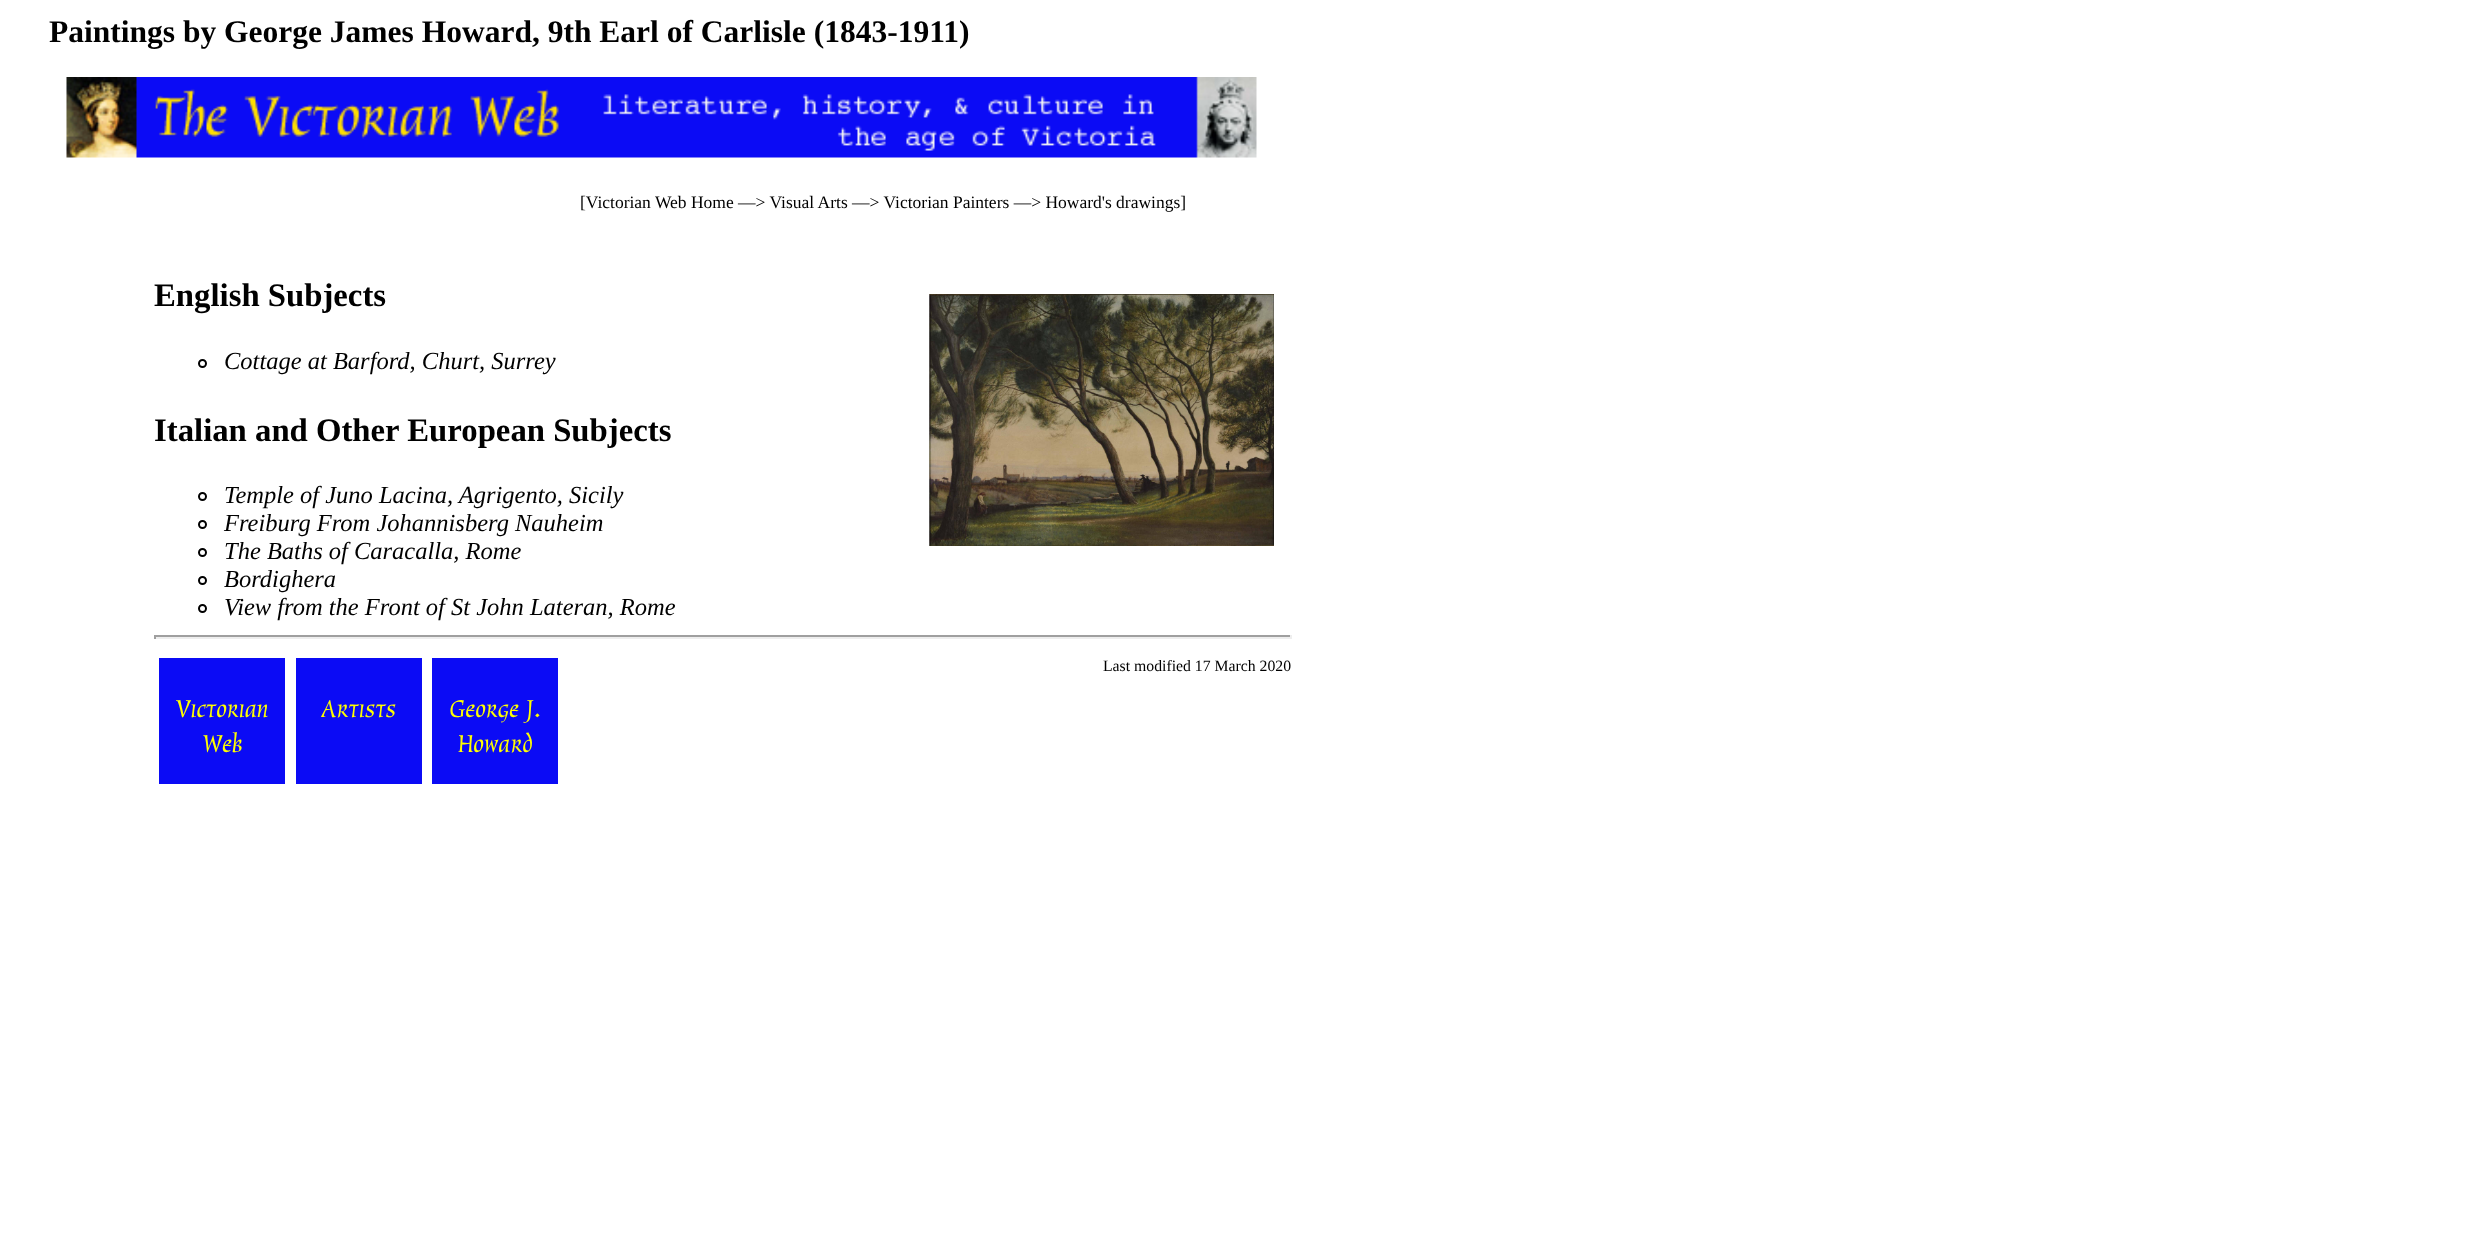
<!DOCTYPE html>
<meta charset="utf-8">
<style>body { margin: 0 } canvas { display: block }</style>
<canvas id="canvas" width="2491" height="1238"></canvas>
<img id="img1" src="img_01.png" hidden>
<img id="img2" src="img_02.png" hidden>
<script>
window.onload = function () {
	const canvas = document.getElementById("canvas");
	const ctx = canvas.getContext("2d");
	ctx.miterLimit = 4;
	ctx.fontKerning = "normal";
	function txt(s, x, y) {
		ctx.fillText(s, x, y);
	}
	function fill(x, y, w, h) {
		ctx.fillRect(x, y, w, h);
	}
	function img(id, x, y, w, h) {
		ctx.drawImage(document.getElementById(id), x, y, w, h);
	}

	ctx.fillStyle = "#FFFFFF";
	fill(0, 0, 2491, 1238);
	img("img1", 66, 77, 1191, 81);
	img("img2", 929, 294, 345, 252);
	ctx.beginPath();
	ctx.arc(202.5, 363.5, 3.5, 0, Math.PI * 2);
	ctx.strokeStyle = "#000000";
	ctx.lineWidth = 2;
	ctx.stroke();
	ctx.beginPath();
	ctx.arc(202.5, 496.5, 3.5, 0, Math.PI * 2);
	ctx.stroke();
	ctx.beginPath();
	ctx.arc(202.5, 524.5, 3.5, 0, Math.PI * 2);
	ctx.stroke();
	ctx.beginPath();
	ctx.arc(202.5, 552.5, 3.5, 0, Math.PI * 2);
	ctx.stroke();
	ctx.beginPath();
	ctx.arc(202.5, 580.5, 3.5, 0, Math.PI * 2);
	ctx.stroke();
	ctx.beginPath();
	ctx.arc(202.5, 608.5, 3.5, 0, Math.PI * 2);
	ctx.stroke();
	ctx.fillStyle = "#9F9F9F";
	fill(154, 635, 1138, 2);
	ctx.fillStyle = "#EEEEEE";
	fill(1290, 635, 2, 4);
	fill(154, 637, 1138, 2);
	ctx.fillStyle = "#9F9F9F";
	fill(154, 635, 2, 4);
	ctx.fillStyle = "#0B0BF5";
	fill(159, 658, 126, 126);
	fill(296, 658, 126, 126);
	fill(432, 658, 126, 126);
	ctx.font = "bold 31.5px Liberation Serif";
	ctx.fillStyle = "#000000";
	txt("Paintings by George James Howard, 9th Earl of Carlisle (1843-1911)", 49, 42);
	ctx.font = "17.5px Liberation Serif";
	txt("[Victorian Web Home —> Visual Arts —> Victorian Painters —> Howard's drawings]", 580, 208);
	ctx.font = "bold 32.75px Liberation Serif";
	txt("English Subjects", 154, 306);
	ctx.font = "italic 24.5px Liberation Serif";
	txt("Cottage at Barford, Churt, Surrey", 224, 369);
	ctx.font = "bold 32.75px Liberation Serif";
	txt("Italian and Other European Subjects", 154, 441);
	ctx.font = "italic 24.5px Liberation Serif";
	txt("Temple of Juno Lacina, Agrigento, Sicily", 224, 503);
	txt("Freiburg From Johannisberg Nauheim", 224, 531);
	txt("The Baths of Caracalla, Rome", 224, 559);
	txt("Bordighera", 224, 587);
	txt("View from the Front of St John Lateran, Rome", 224, 615);
	ctx.font = "15.75px Liberation Serif";
	txt("Last modified 17 March 2020", 1103, 671);
	ctx.font = "28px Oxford";
	ctx.fillStyle = "#FFFF00";
	txt("Victorian", 176, 717);
	txt("Web", 203, 752);
	txt("Artists", 321, 717);
	txt("George J.", 449, 717);
	txt("Howard", 458, 752);
};
</script>
